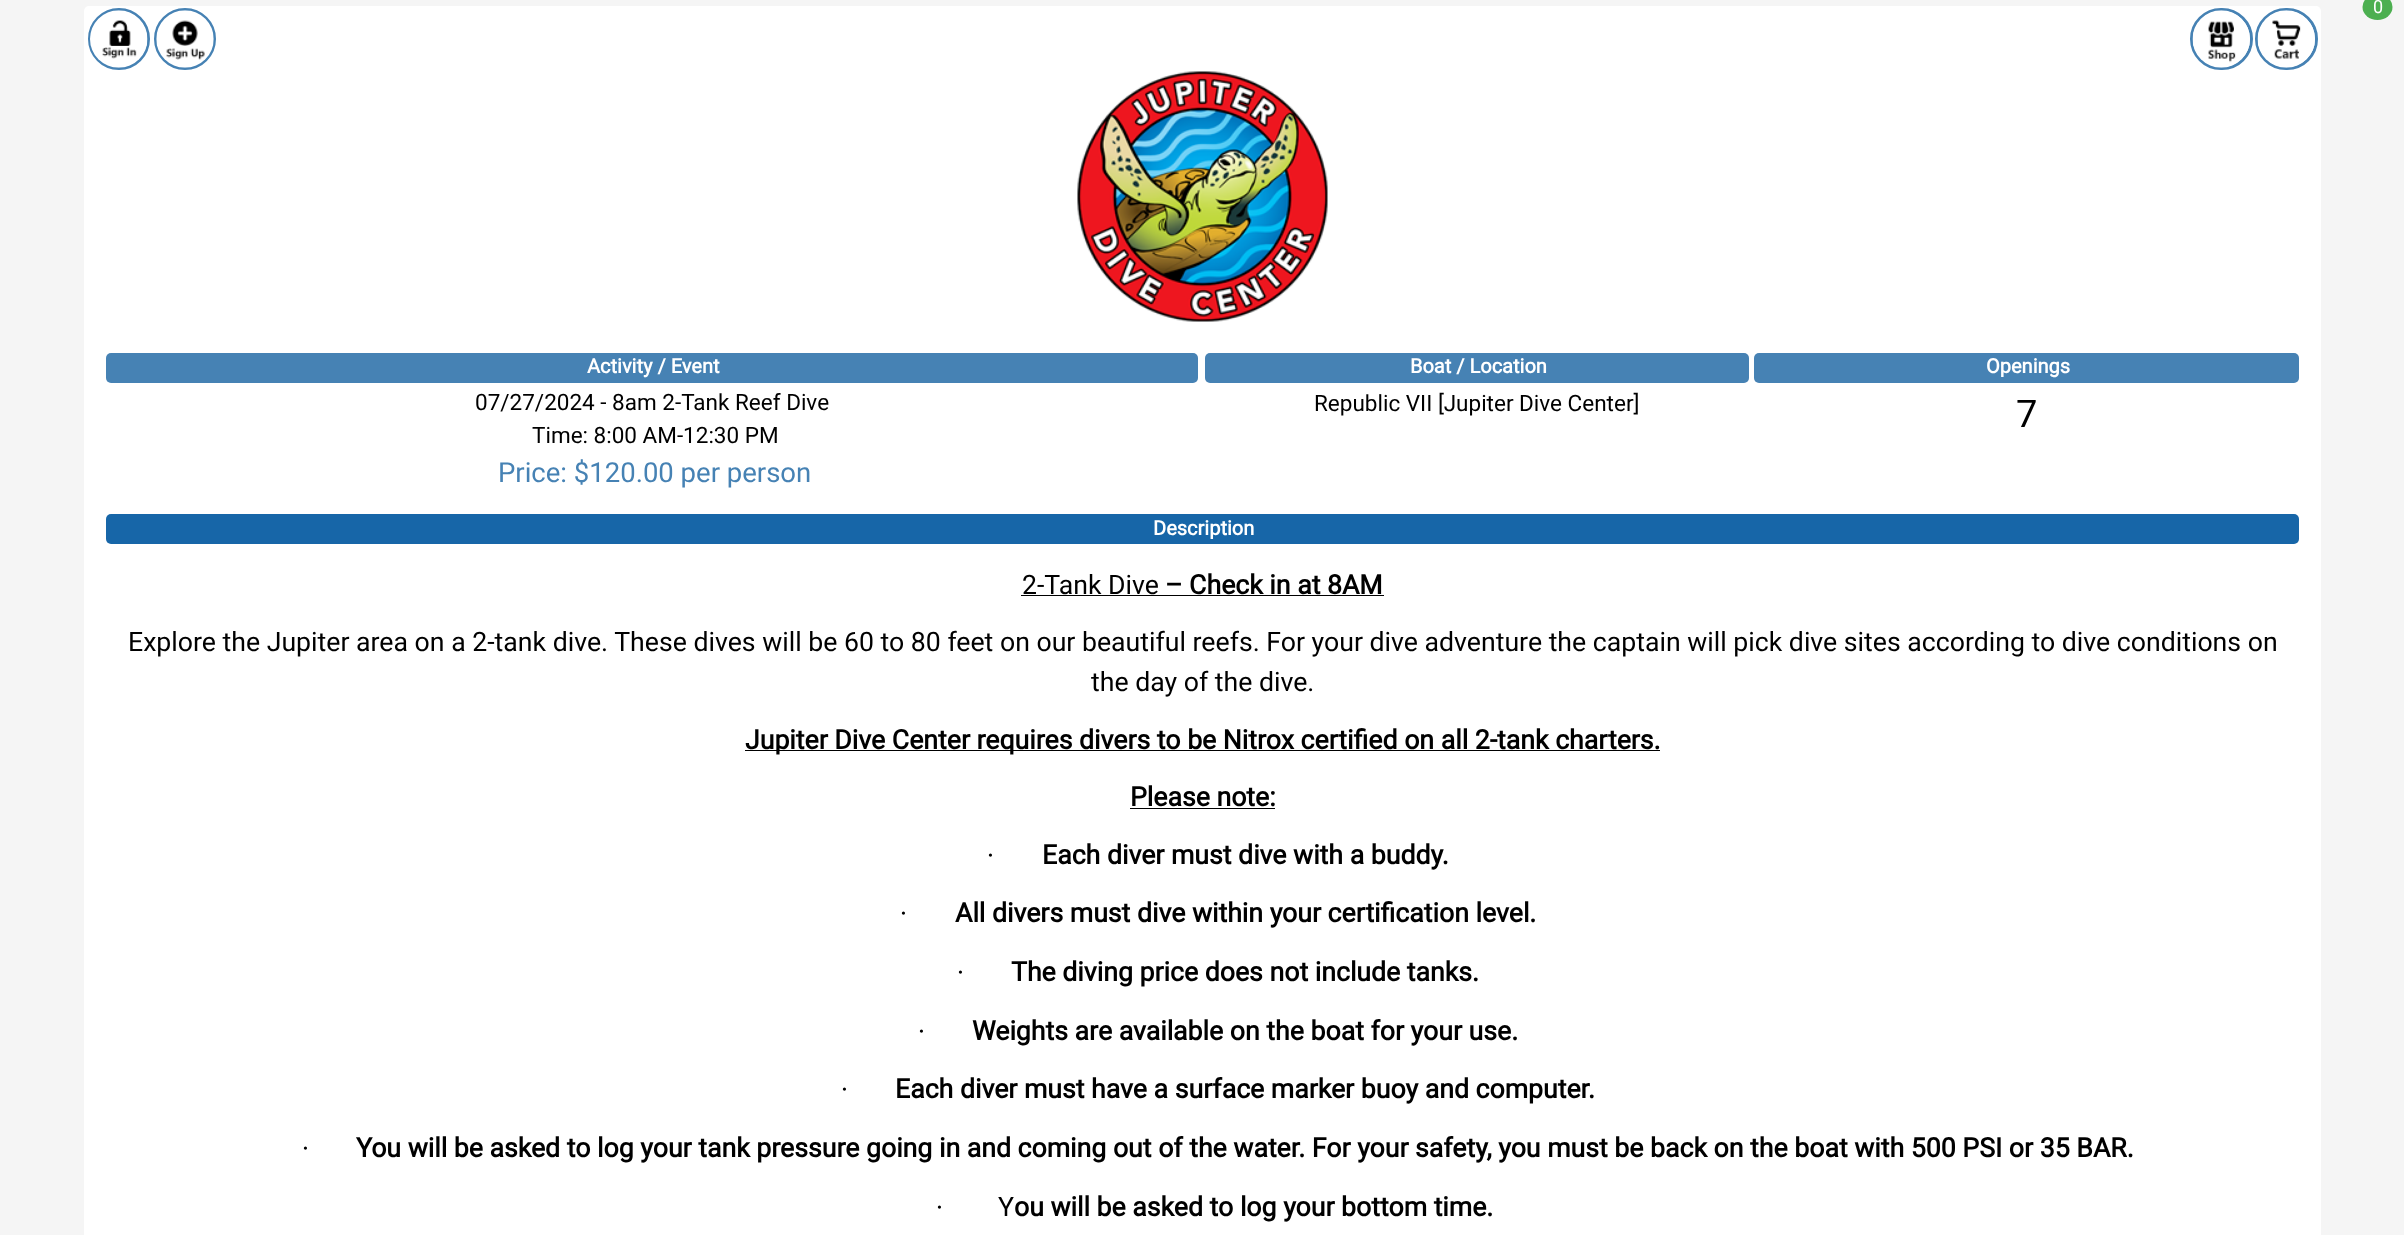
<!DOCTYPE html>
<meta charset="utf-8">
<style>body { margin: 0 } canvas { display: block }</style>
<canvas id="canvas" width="2404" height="1235"></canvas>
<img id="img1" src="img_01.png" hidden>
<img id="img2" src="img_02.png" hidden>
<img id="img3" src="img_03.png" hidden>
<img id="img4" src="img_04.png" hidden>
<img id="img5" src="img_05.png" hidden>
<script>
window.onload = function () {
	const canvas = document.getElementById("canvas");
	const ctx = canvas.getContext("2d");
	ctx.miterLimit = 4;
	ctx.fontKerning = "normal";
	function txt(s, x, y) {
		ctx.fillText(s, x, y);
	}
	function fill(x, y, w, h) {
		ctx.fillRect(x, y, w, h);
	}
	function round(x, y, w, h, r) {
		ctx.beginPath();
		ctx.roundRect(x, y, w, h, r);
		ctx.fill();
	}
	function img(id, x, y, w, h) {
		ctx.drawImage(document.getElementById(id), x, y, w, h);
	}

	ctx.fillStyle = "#F5F5F5";
	fill(0, 0, 2404, 1235);
	ctx.fillStyle = "#FFFFFF";
	round(84, 6, 2237, 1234, 5);
	ctx.beginPath();
	ctx.arc(119, 39, 29.5, 0, Math.PI * 2);
	ctx.strokeStyle = "#4682B4";
	ctx.lineWidth = 3;
	ctx.stroke();
	ctx.beginPath();
	ctx.arc(185, 39, 29.5, 0, Math.PI * 2);
	ctx.stroke();
	img("img1", 90, 10, 58, 58);
	img("img2", 156, 10, 58, 58);
	ctx.beginPath();
	ctx.roundRect(2191.5, 9.5, 60, 59, 29.5);
	ctx.stroke();
	img("img3", 2192, 10, 58, 58);
	ctx.beginPath();
	ctx.roundRect(2256.5, 9.5, 60, 59, 29.5);
	ctx.stroke();
	ctx.fillStyle = "#4CAF50";
	ctx.beginPath();
	ctx.ellipse(2377.5, 7, 15, 13, 0, 0, Math.PI * 2);
	ctx.fill();
	img("img4", 2257, 10, 58, 58);
	img("img5", 1077, 71, 251, 251);
	ctx.fillStyle = "#4682B4";
	round(106, 353, 1092, 30, 5);
	round(1205, 353, 544, 30, 5);
	round(1754, 353, 545, 30, 5);
	ctx.fillStyle = "#1766A8";
	round(106, 514, 2193, 30, 5);
	ctx.fillStyle = "#000000";
	fill(1021, 595, 363, 1);
	fill(745, 750, 915, 1);
	fill(1130, 808, 145, 1);
	ctx.font = "18px Roboto";
	ctx.fillStyle = "#FFFFFF";
	txt("0", 2373, 13);
	ctx.font = "bold 20px Roboto";
	txt("Activity / Event", 587, 373);
	ctx.font = "22.5px Roboto";
	ctx.fillStyle = "#000000";
	txt("07/27/2024 - 8am 2-Tank Reef Dive", 475, 410);
	txt("Time: 8:00 AM-12:30 PM", 532, 443);
	ctx.font = "27.5px Roboto";
	ctx.fillStyle = "#4682B4";
	txt("Price: $120.00 per person", 498, 482);
	ctx.font = "bold 20px Roboto";
	ctx.fillStyle = "#FFFFFF";
	txt("Boat / Location", 1410, 373);
	ctx.font = "22.5px Roboto";
	ctx.fillStyle = "#000000";
	txt("Republic VII [Jupiter Dive Center]", 1314, 411);
	ctx.font = "bold 20px Roboto";
	ctx.fillStyle = "#FFFFFF";
	txt("Openings", 1986, 373);
	ctx.font = "38px Roboto";
	ctx.fillStyle = "#000000";
	txt("7", 2016, 427);
	ctx.font = "bold 20px Roboto";
	ctx.fillStyle = "#FFFFFF";
	txt("Description", 1153, 535);
	ctx.font = "26.67px Roboto";
	ctx.fillStyle = "#000000";
	txt("2-Tank Dive", 1022, 594);
	ctx.font = "bold 26.67px Roboto";
	txt("– Check in at 8AM", 1165, 594);
	ctx.font = "26.67px Roboto";
	txt("Explore the Jupiter area on a 2-tank dive. These dives will be 60 to 80 feet on our beautiful reefs. For your dive adventure the captain will pick dive sites according to dive conditions on", 128, 651);
	txt("the day of the dive.", 1091, 691);
	ctx.font = "bold 26.67px Roboto";
	txt("Jupiter Dive Center requires divers to be Nitrox certified on all 2-tank charters.", 745, 749);
	txt("Please note:", 1130, 806);
	ctx.font = "26.67px Liberation Serif";
	txt("·", 986, 864);
	ctx.font = "bold 26.67px Roboto";
	txt("Each diver must dive with a buddy.", 1042, 864);
	ctx.font = "26.67px Liberation Serif";
	txt("·", 899, 922);
	ctx.font = "bold 26.67px Roboto";
	txt("All divers must dive within your certification level.", 955, 922);
	ctx.font = "26.67px Liberation Serif";
	txt("·", 956, 981);
	ctx.font = "bold 26.67px Roboto";
	txt("The diving price does not include tanks.", 1011, 981);
	ctx.font = "26.67px Liberation Serif";
	txt("·", 917, 1040);
	ctx.font = "bold 26.67px Roboto";
	txt("Weights are available on the boat for your use.", 972, 1040);
	ctx.font = "26.67px Liberation Serif";
	txt("·", 840, 1098);
	ctx.font = "bold 26.67px Roboto";
	txt("Each diver must have a surface marker buoy and computer.", 895, 1098);
	ctx.font = "26.67px Liberation Serif";
	txt("·", 301, 1157);
	ctx.font = "bold 26.67px Roboto";
	txt("You will be asked to log your tank pressure going in and coming out of the water. For your safety, you must be back on the boat with 500 PSI or 35 BAR.", 356, 1157);
	ctx.font = "26.67px Liberation Serif";
	txt("·", 935, 1216);
	ctx.font = "26.67px Roboto";
	txt("Y", 998, 1216);
	ctx.font = "bold 26.67px Roboto";
	txt("ou will be asked to log your bottom time.", 1014, 1216);
};
</script>
